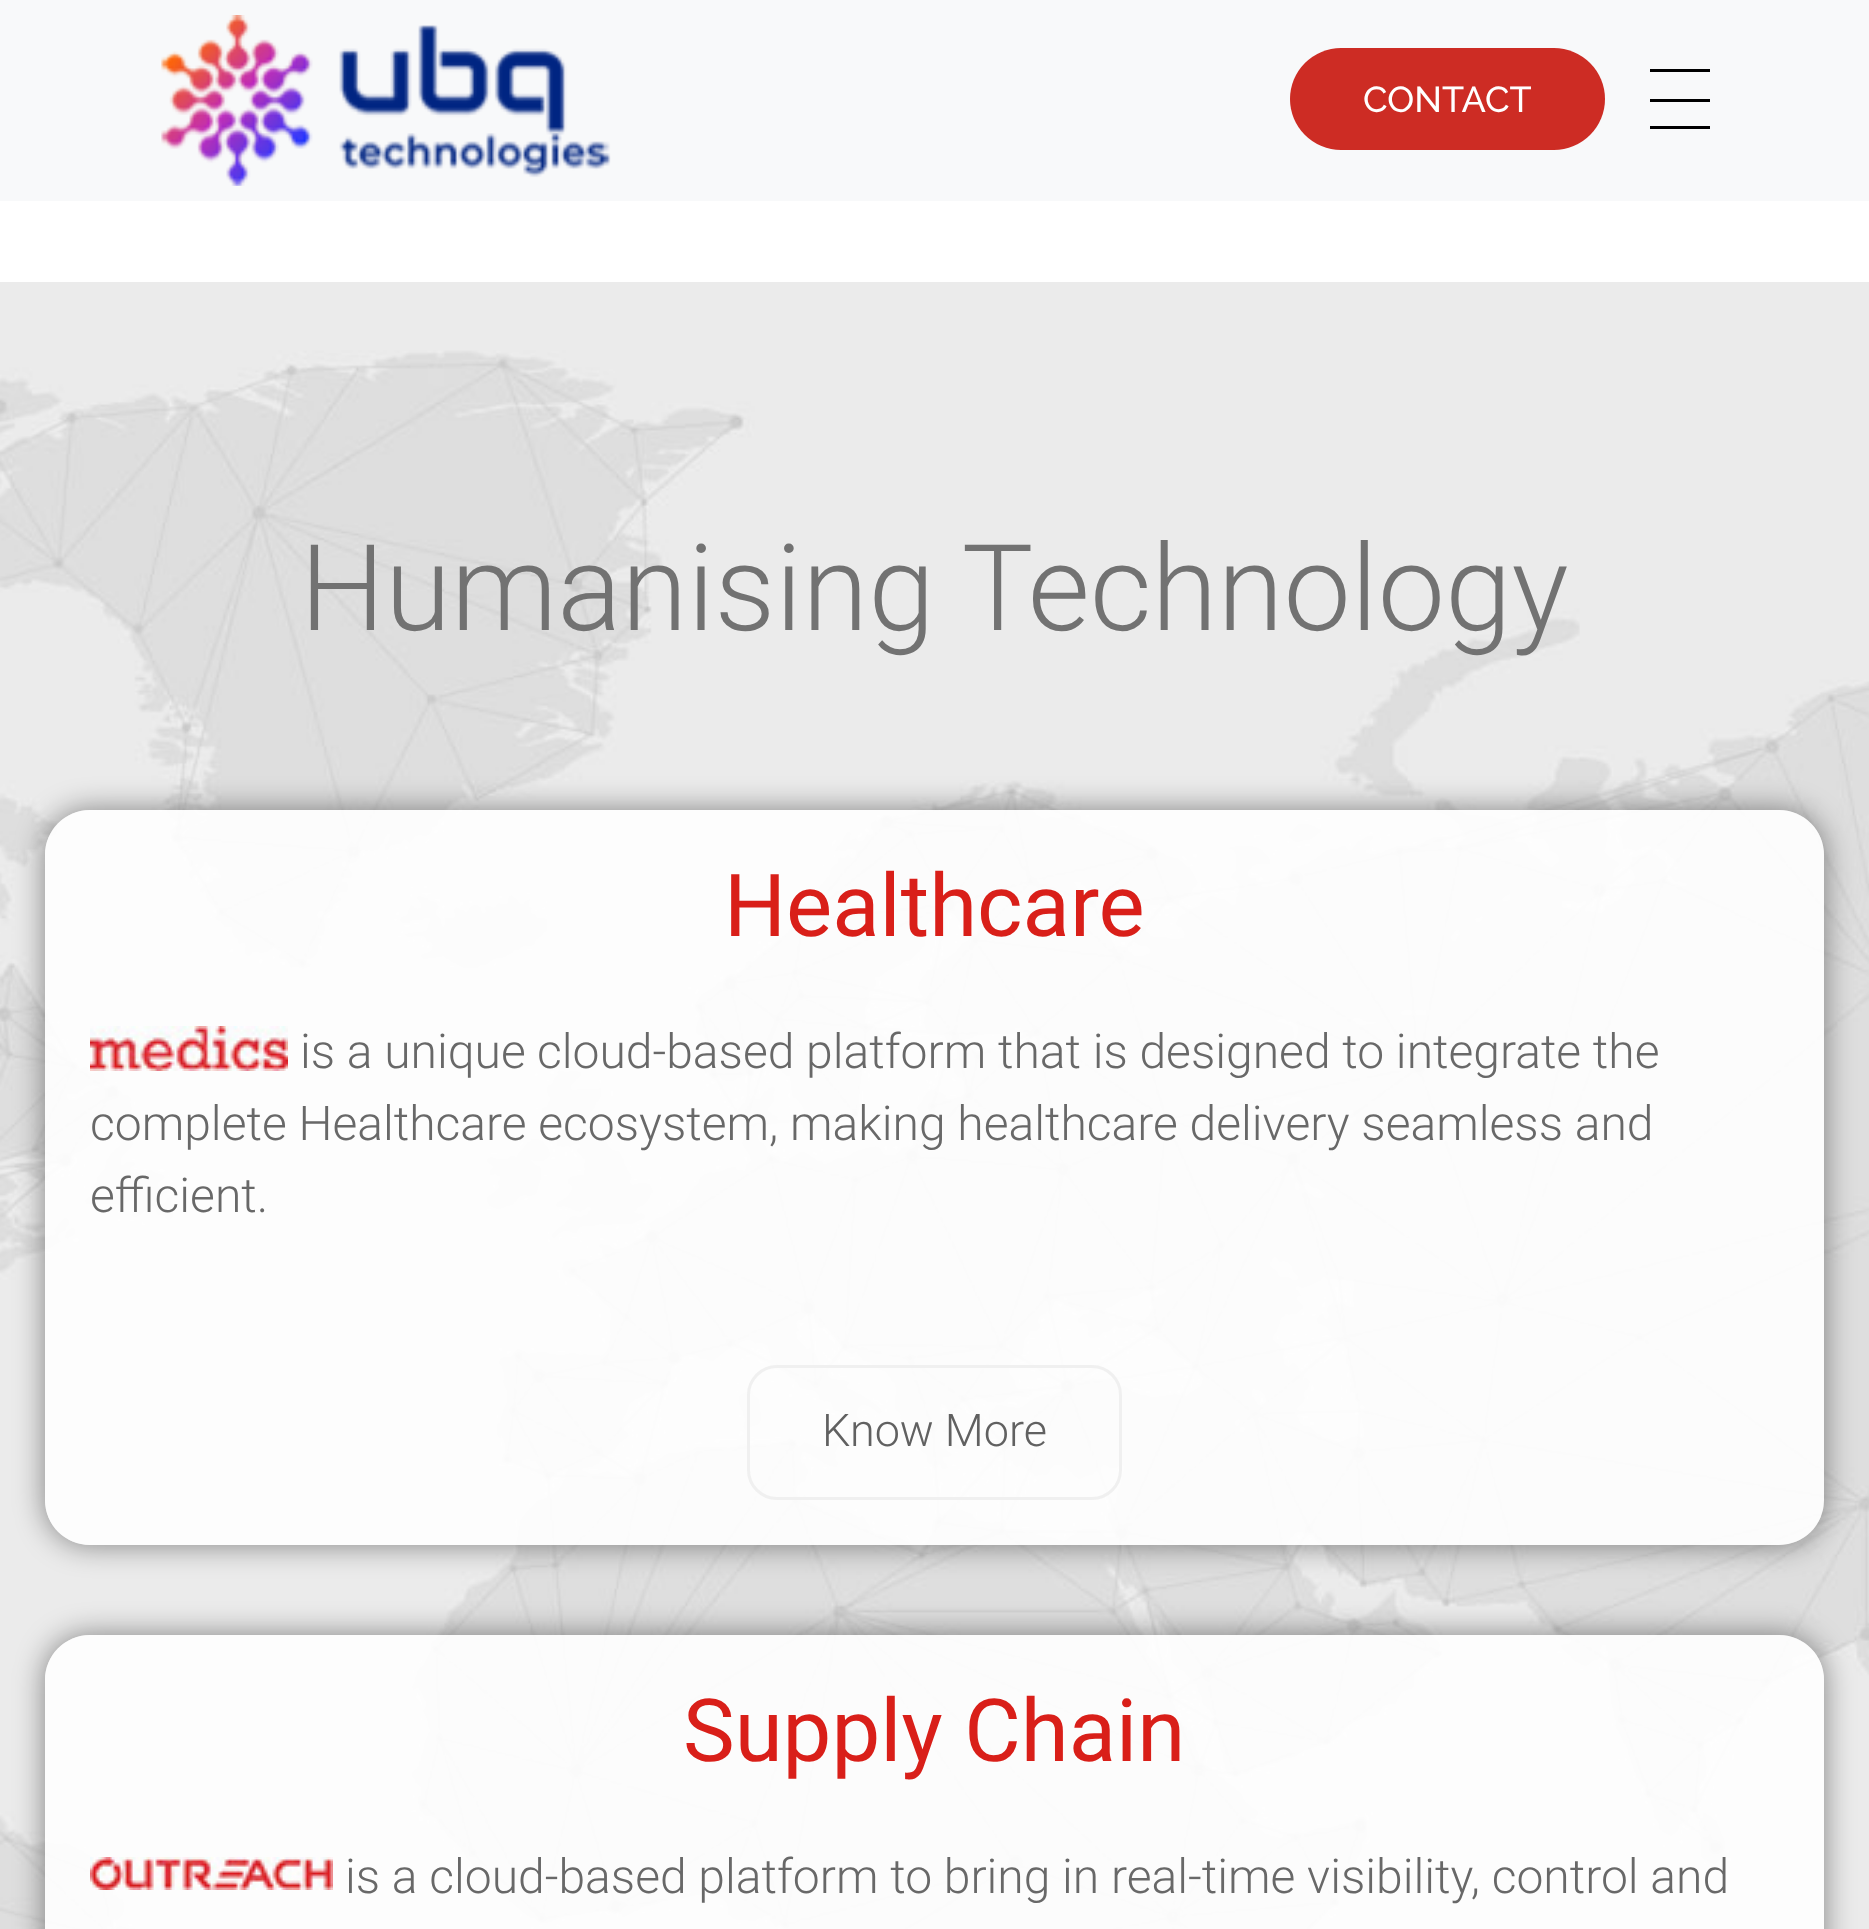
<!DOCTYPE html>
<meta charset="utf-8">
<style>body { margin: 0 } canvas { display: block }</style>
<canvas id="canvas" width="1869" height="1929"></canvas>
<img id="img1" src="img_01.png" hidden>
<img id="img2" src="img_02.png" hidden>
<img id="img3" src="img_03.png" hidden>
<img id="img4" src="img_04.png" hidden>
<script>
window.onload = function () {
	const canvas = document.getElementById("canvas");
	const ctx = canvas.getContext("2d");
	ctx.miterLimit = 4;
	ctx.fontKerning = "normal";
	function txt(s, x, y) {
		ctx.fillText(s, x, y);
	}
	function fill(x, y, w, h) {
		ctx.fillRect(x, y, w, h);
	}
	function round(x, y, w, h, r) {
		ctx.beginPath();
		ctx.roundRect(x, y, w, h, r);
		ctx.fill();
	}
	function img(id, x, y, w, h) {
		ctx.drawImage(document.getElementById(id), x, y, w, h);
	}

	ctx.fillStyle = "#FFFFFF";
	fill(0, 0, 1869, 1929);
	ctx.fillStyle = "#F8F9FA";
	fill(0, 0, 1869, 201);
	img("img1", 161, 15, 450, 171);
	ctx.fillStyle = "#CD2C24";
	round(1290, 48, 315, 102, 51);
	ctx.fillStyle = "#000000";
	fill(1650, 69, 60, 3);
	fill(1650, 99, 60, 3);
	fill(1650, 126, 60, 3);
	img("img2", 0, 282, 1869, 1647);
	ctx.save();
	ctx.beginPath();
	ctx.moveTo(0, 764);
	ctx.lineTo(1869, 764);
	ctx.lineTo(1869, 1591);
	ctx.lineTo(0, 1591);
	ctx.closePath();
	ctx.moveTo(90, 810);
	ctx.lineTo(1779, 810);
	ctx.bezierCurveTo(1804, 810, 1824, 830, 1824, 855);
	ctx.lineTo(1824, 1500);
	ctx.bezierCurveTo(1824, 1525, 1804, 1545, 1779, 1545);
	ctx.lineTo(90, 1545);
	ctx.bezierCurveTo(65, 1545, 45, 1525, 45, 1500);
	ctx.lineTo(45, 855);
	ctx.bezierCurveTo(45, 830, 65, 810, 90, 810);
	ctx.closePath();
	ctx.clip("evenodd");
	ctx.fillStyle = "rgba(0, 0, 0, 0.45)";
	ctx.filter = "blur(15px)";
	ctx.beginPath();
	ctx.roundRect(45, 810, 1779, 735, 45);
	ctx.fill();
	ctx.filter = "none";
	ctx.restore();
	ctx.fillStyle = "rgba(255, 255, 255, 0.9)";
	round(45, 810, 1779, 735, 45);
	img("img3", 90, 1026, 198, 45);
	ctx.beginPath();
	ctx.roundRect(748.5, 1366.5, 372, 132, 28.5);
	ctx.strokeStyle = "rgba(238, 238, 238, 0.9)";
	ctx.lineWidth = 3;
	ctx.stroke();
	ctx.save();
	ctx.beginPath();
	ctx.moveTo(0, 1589);
	ctx.lineTo(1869, 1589);
	ctx.lineTo(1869, 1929);
	ctx.lineTo(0, 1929);
	ctx.closePath();
	ctx.moveTo(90, 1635);
	ctx.lineTo(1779, 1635);
	ctx.bezierCurveTo(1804, 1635, 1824, 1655, 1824, 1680);
	ctx.lineTo(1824, 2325);
	ctx.bezierCurveTo(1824, 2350, 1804, 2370, 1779, 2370);
	ctx.lineTo(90, 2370);
	ctx.bezierCurveTo(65, 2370, 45, 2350, 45, 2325);
	ctx.lineTo(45, 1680);
	ctx.bezierCurveTo(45, 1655, 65, 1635, 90, 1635);
	ctx.closePath();
	ctx.clip("evenodd");
	ctx.fillStyle = "rgba(0, 0, 0, 0.45)";
	ctx.filter = "blur(15px)";
	ctx.beginPath();
	ctx.roundRect(45, 1635, 1779, 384, 45);
	ctx.fill();
	ctx.filter = "none";
	ctx.restore();
	round(45, 1635, 1779, 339, 45);
	img("img4", 90, 1857, 243, 33);
	ctx.font = "500 36px Raleway";
	ctx.fillStyle = "#FFFFFF";
	txt("CONTACT", 1363, 112);
	ctx.font = "300 120px Roboto";
	ctx.fillStyle = "#727272";
	txt("Humanising Technology", 300, 630);
	ctx.font = "87px Roboto";
	ctx.fillStyle = "#D91F19";
	txt("Healthcare", 724, 936);
	ctx.font = "300 48px Roboto";
	ctx.fillStyle = "#686868";
	txt("is a unique", 300, 1068);
	txt("cloud-based platform that is designed to integrate the", 537, 1068);
	txt("complete Healthcare ecosystem, making healthcare delivery seamless and", 90, 1140);
	txt("efficient.", 90, 1212);
	ctx.font = "300 45px Roboto";
	ctx.fillStyle = "#616161";
	txt("Know More", 822, 1446);
	ctx.font = "87px Roboto";
	ctx.fillStyle = "#D91F19";
	txt("Supply Chain", 683, 1761);
	ctx.font = "300 48px Roboto";
	ctx.fillStyle = "#686868";
	txt("is a cloud-based platform to bring in real-time visibility, control and", 345, 1893);
};
</script>
